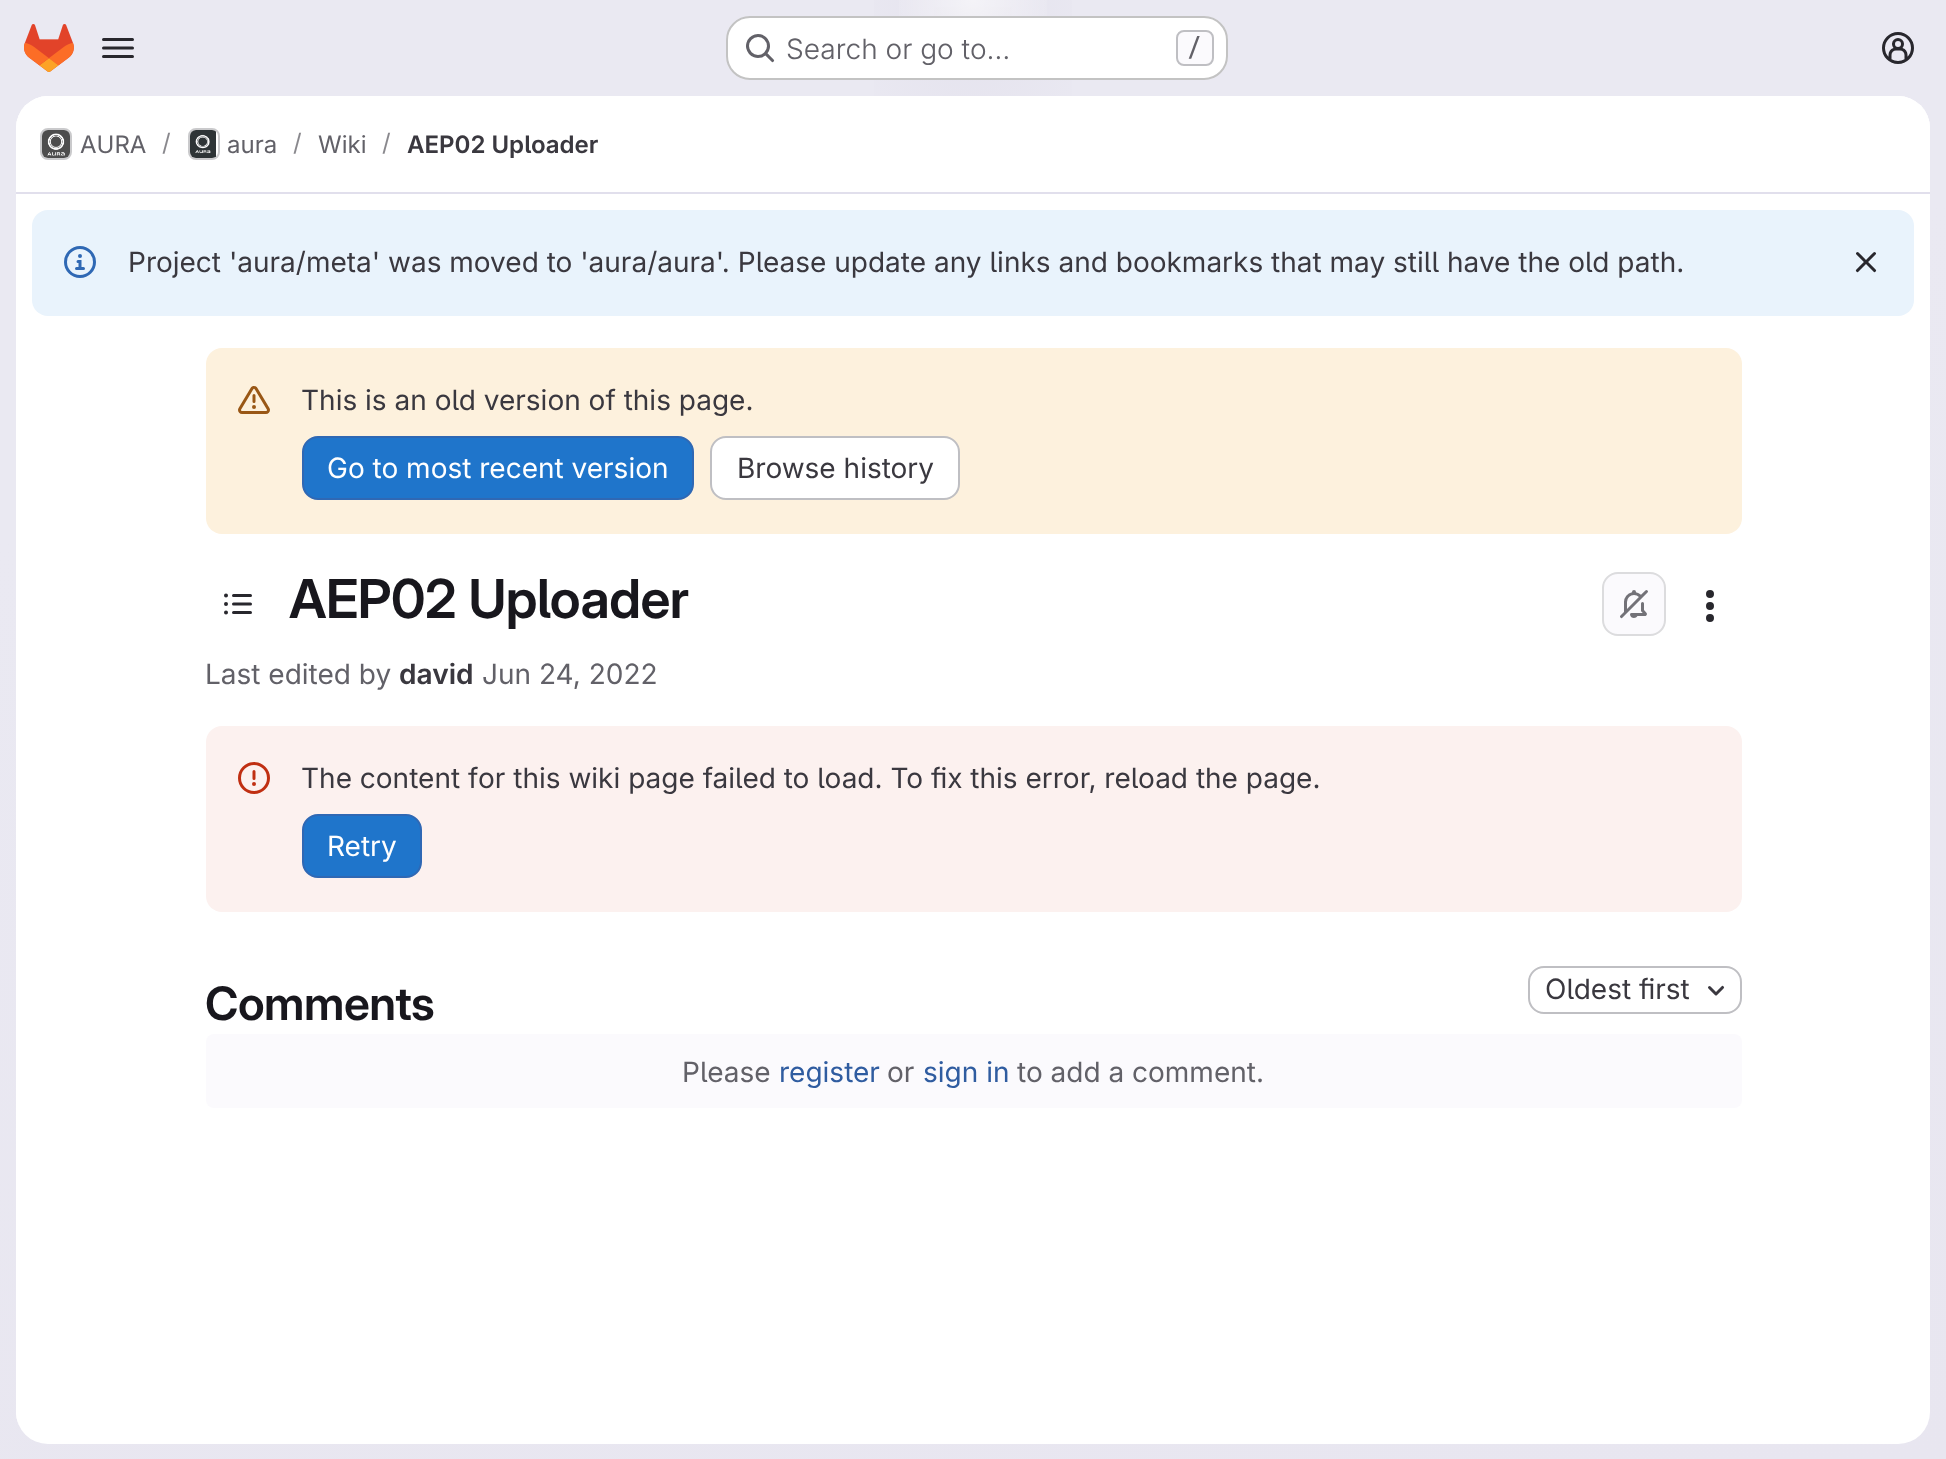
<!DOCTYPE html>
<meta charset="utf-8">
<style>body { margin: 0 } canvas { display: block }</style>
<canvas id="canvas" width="1946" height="1459"></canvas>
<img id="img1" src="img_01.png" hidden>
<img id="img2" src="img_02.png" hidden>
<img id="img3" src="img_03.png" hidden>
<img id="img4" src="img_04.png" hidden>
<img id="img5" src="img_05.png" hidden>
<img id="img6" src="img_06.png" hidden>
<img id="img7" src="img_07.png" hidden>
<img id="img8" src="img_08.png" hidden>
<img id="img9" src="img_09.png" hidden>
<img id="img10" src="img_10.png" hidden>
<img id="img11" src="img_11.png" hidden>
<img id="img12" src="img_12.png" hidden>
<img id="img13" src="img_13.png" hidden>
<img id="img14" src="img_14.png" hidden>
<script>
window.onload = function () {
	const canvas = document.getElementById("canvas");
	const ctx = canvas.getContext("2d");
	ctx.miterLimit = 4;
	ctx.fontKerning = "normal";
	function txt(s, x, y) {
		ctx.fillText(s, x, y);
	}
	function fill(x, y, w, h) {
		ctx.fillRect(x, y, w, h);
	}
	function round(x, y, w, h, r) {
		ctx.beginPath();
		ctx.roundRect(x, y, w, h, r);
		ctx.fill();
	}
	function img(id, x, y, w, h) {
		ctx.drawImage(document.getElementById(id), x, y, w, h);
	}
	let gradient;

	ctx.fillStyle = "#FFFFFF";
	fill(0, 0, 1946, 1459);
	gradient = ctx.createLinearGradient(1127, 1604, 819, -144);
	gradient.addColorStop(0, "#E8E6F0");
	gradient.addColorStop(0.7, "#EAE9F2");
	ctx.fillStyle = gradient;
	fill(0, 0, 1946, 1459);
	gradient = ctx.createRadialGradient(973, 0, 0, 973, 0, 973);
	gradient.addColorStop(0, "#E4E2ED");
	gradient.addColorStop(0.14, "rgba(228, 226, 237, 0)");
	ctx.fillStyle = gradient;
	ctx.beginPath();
	ctx.rect(874, 0, 198, 96);
	ctx.save();
	ctx.clip();
	ctx.scale(1, 1460 / 973);
	ctx.fillRect(0, 0, 1946, 973);
	ctx.restore();
	gradient = ctx.createRadialGradient(973, 0, 0, 973, 0, 973);
	gradient.addColorStop(0, "#E4E2EC");
	gradient.addColorStop(0.1, "rgba(228, 226, 236, 0)");
	ctx.fillStyle = gradient;
	ctx.beginPath();
	ctx.rect(934, 7, 78, 53);
	ctx.save();
	ctx.clip();
	ctx.scale(1, 1460 / 973);
	ctx.fillRect(0, 0, 1946, 973);
	ctx.restore();
	gradient = ctx.createRadialGradient(973, 0, 0, 973, 0, 1755);
	gradient.addColorStop(0, "rgba(255, 255, 255, 0.6)");
	gradient.addColorStop(0.05, "rgba(255, 255, 255, 0)");
	ctx.fillStyle = gradient;
	fill(899, 0, 148, 16);
	img("img1", 24, 24, 50, 48);
	img("img2", 102, 38, 32, 20);
	ctx.fillStyle = "#FFFFFF";
	round(726, 16, 502, 64, 24);
	ctx.beginPath();
	ctx.roundRect(727, 17, 500, 62, 23);
	ctx.strokeStyle = "rgba(5, 5, 6, 0.24)";
	ctx.lineWidth = 2;
	ctx.stroke();
	img("img3", 746, 34, 29, 29);
	ctx.fillStyle = "#FBFAFD";
	ctx.beginPath();
	ctx.roundRect(1177, 31, 36, 34, 7);
	ctx.fill();
	ctx.strokeStyle = "#BFBFC3";
	ctx.stroke();
	img("img4", 1882, 32, 32, 32);
	ctx.fillStyle = "#FFFFFF";
	round(16, 96, 1914, 1348, 32);
	ctx.beginPath();
	ctx.roundRect(16, 96, 1914, 98, [32, 32, 0, 0]);
	ctx.fill();
	ctx.fillStyle = "#E1DFEC";
	fill(16, 192, 1914, 2);
	ctx.beginPath();
	ctx.roundRect(41, 129, 30, 30, 7);
	ctx.strokeStyle = "#DCDCDE";
	ctx.stroke();
	img("img5", 42, 130, 28, 28);
	ctx.beginPath();
	ctx.roundRect(41, 129, 30, 30, 7);
	ctx.strokeStyle = "rgba(5, 5, 6, 0.08)";
	ctx.stroke();
	ctx.beginPath();
	ctx.roundRect(189, 129, 30, 30, 7);
	ctx.strokeStyle = "#DCDCDE";
	ctx.stroke();
	img("img6", 190, 130, 26, 28);
	ctx.beginPath();
	ctx.roundRect(189, 129, 30, 30, 7);
	ctx.strokeStyle = "rgba(5, 5, 6, 0.08)";
	ctx.stroke();
	ctx.fillStyle = "#E9F3FC";
	round(32, 210, 1882, 106, 16);
	img("img7", 64, 246, 32, 32);
	img("img8", 1855, 252, 22, 21);
	ctx.save();
	ctx.beginPath();
	ctx.roundRect(16, 96, 1914, 1348, 32);
	ctx.clip();
	ctx.fillStyle = "#FFFFFF";
	fill(16, 194, 2, 1229);
	ctx.restore();
	ctx.fillStyle = "#FDF1DD";
	round(206, 348, 1536, 186, 16);
	img("img9", 238, 386, 32, 28);
	ctx.fillStyle = "#1F75CB";
	ctx.beginPath();
	ctx.roundRect(303, 437, 390, 62, 15);
	ctx.fill();
	ctx.strokeStyle = "#2F68B4";
	ctx.stroke();
	ctx.fillStyle = "#FFFFFF";
	ctx.beginPath();
	ctx.roundRect(711, 437, 248, 62, 15);
	ctx.fill();
	ctx.strokeStyle = "#BFBFC3";
	ctx.stroke();
	img("img10", 224, 593, 28, 22);
	ctx.fillStyle = "#FBFAFD";
	ctx.beginPath();
	ctx.roundRect(1603, 573, 62, 62, 15);
	ctx.fill();
	ctx.strokeStyle = "#DCDCDE";
	ctx.stroke();
	img("img11", 1620, 590, 28, 29);
	img("img12", 1706, 590, 8, 32);
	ctx.fillStyle = "#FCF1EF";
	round(206, 726, 1536, 186, 16);
	img("img13", 238, 762, 32, 32);
	ctx.fillStyle = "#1F75CB";
	ctx.beginPath();
	ctx.roundRect(303, 815, 118, 62, 15);
	ctx.fill();
	ctx.strokeStyle = "#2F68B4";
	ctx.stroke();
	ctx.beginPath();
	ctx.roundRect(1529, 967, 212, 46, 15);
	ctx.strokeStyle = "#BFBFC3";
	ctx.stroke();
	img("img14", 1708, 985, 17, 11);
	ctx.fillStyle = "#FBFAFD";
	round(206, 1034, 1536, 74, 8);
	ctx.font = "300 28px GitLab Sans";
	ctx.fillStyle = "#626168";
	txt("Search or go to…", 786, 59);
	ctx.font = "500 24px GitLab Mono";
	txt("/", 1187, 56);
	ctx.font = "24px GitLab Sans";
	txt("AURA", 80, 153);
	ctx.fillStyle = "#89888D";
	txt("/", 162, 151);
	ctx.fillStyle = "#626168";
	txt("aura", 227, 153);
	ctx.fillStyle = "#89888D";
	txt("/", 293, 151);
	ctx.fillStyle = "#626168";
	txt("Wiki", 318, 153);
	ctx.fillStyle = "#89888D";
	txt("/", 382, 151);
	ctx.font = "600 24px 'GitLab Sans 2'";
	ctx.fillStyle = "#3A383F";
	txt("AEP02 Uploader", 407, 153);
	ctx.font = "28px GitLab Sans";
	txt("Project 'aura/meta' was moved to 'aura/aura'. Please update any links and bookmarks that may still have the old path.", 128, 272);
	txt("This is an old version of this page.", 301, 410);
	ctx.fillStyle = "#FFFFFF";
	txt("Go to most recent version", 327, 478);
	ctx.fillStyle = "#3A383F";
	txt("Browse history", 737, 478);
	ctx.letterSpacing = "-0.5px";
	ctx.wordSpacing = "1px";
	ctx.font = "600 53.75px GitLab Sans";
	ctx.fillStyle = "#18171D";
	txt("AEP02 Uploader", 289, 618);
	ctx.letterSpacing = "0px";
	ctx.wordSpacing = "0px";
	ctx.font = "28px GitLab Sans";
	ctx.fillStyle = "#626168";
	txt("Last edited by", 205, 684);
	ctx.font = "600 28px 'GitLab Sans 2'";
	ctx.fillStyle = "#3A383F";
	txt("david", 399, 684);
	ctx.font = "28px GitLab Sans";
	ctx.fillStyle = "#626168";
	txt("Jun 24, 2022", 482, 684);
	ctx.fillStyle = "#3A383F";
	txt("The content for this wiki page failed to load. To fix this error, reload the page.", 301, 788);
	ctx.fillStyle = "#FFFFFF";
	txt("Retry", 327, 856);
	ctx.letterSpacing = "-0.5px";
	ctx.font = "600 46px 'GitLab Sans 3'";
	ctx.fillStyle = "#18171D";
	txt("Comments", 205, 1020);
	ctx.letterSpacing = "0px";
	ctx.font = "28px GitLab Sans";
	ctx.fillStyle = "#3A383F";
	txt("Oldest first", 1545, 999);
	ctx.fillStyle = "#626168";
	txt("Please", 682, 1082);
	ctx.fillStyle = "#2F5CA0";
	txt("register", 779, 1082);
	ctx.fillStyle = "#626168";
	txt("or", 887, 1082);
	ctx.fillStyle = "#2F5CA0";
	txt("sign in", 923, 1082);
	ctx.fillStyle = "#626168";
	txt("to add a comment.", 1017, 1082);
};
</script>
